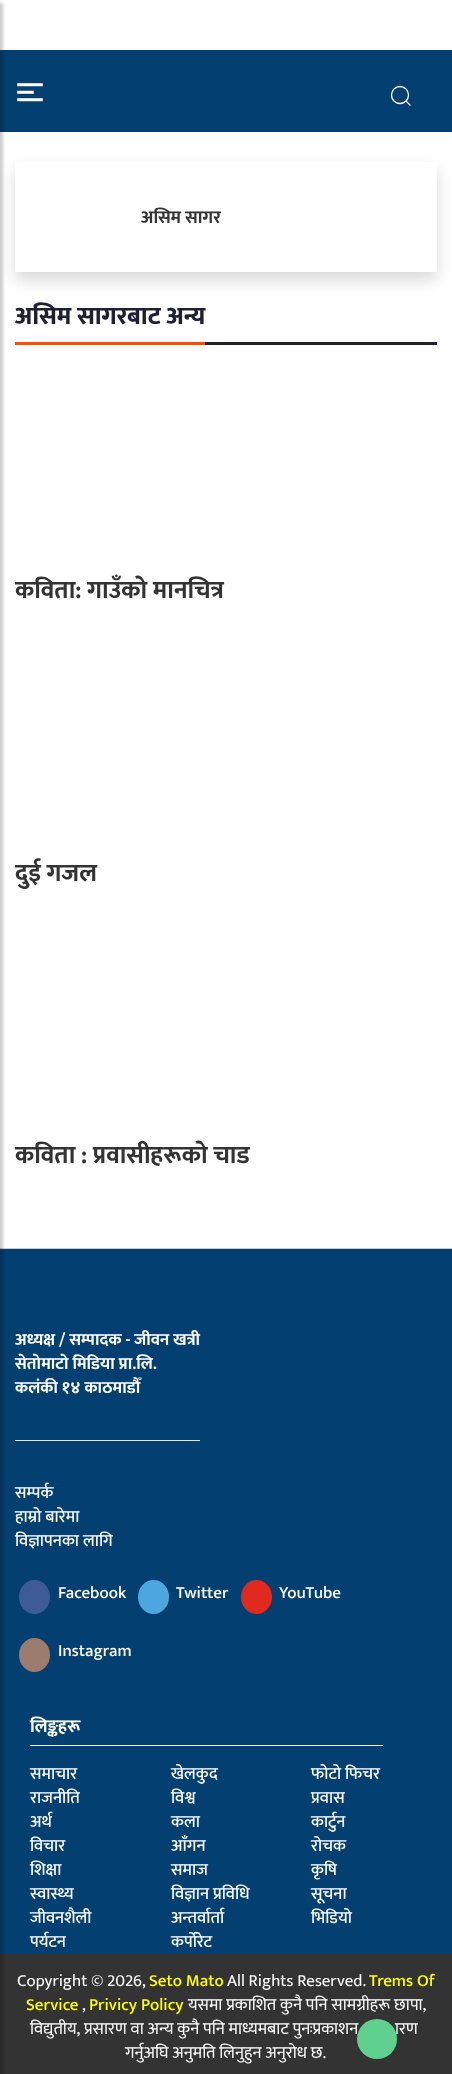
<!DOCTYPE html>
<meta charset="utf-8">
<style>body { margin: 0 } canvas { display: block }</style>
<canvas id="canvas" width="452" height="2074"></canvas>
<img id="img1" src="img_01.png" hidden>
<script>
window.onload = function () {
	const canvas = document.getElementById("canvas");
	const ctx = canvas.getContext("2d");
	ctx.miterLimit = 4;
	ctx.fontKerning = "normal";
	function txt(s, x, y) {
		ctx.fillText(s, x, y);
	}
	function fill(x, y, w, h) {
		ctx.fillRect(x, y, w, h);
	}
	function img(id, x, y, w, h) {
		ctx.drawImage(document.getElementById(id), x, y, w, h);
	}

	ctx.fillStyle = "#FFFFFF";
	fill(0, 0, 452, 2074);
	ctx.fillStyle = "#043F71";
	fill(0, 50, 452, 82);
	fill(0, 1249, 452, 705);
	ctx.fillStyle = "#CCCCCC";
	fill(0, 1248, 452, 1);
	ctx.fillStyle = "#333333";
	fill(0, 1954, 452, 120);
	ctx.fillStyle = "rgba(0, 0, 0, 0.2)";
	ctx.filter = "blur(1.5px)";
	ctx.beginPath();
	ctx.rect(-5, 3, 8, 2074);
	ctx.fill();
	ctx.filter = "none";
	img("img1", 17, 83, 26, 19);
	ctx.beginPath();
	ctx.arc(400, 95, 8.5, 0, Math.PI * 2);
	ctx.strokeStyle = "#FFFFFF";
	ctx.lineWidth = 1.3;
	ctx.stroke();
	ctx.beginPath();
	ctx.moveTo(406, 101);
	ctx.lineTo(410.5, 105.5);
	ctx.closePath();
	ctx.stroke();
	ctx.save();
	ctx.beginPath();
	ctx.moveTo(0, 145);
	ctx.lineTo(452, 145);
	ctx.lineTo(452, 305);
	ctx.lineTo(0, 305);
	ctx.closePath();
	ctx.moveTo(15, 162);
	ctx.lineTo(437, 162);
	ctx.lineTo(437, 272);
	ctx.lineTo(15, 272);
	ctx.closePath();
	ctx.clip("evenodd");
	ctx.fillStyle = "rgba(0, 0, 0, 0.15)";
	ctx.filter = "blur(8px)";
	ctx.beginPath();
	ctx.rect(15, 170, 422, 110);
	ctx.fill();
	ctx.filter = "none";
	ctx.restore();
	ctx.fillStyle = "#1F2033";
	fill(205, 342, 232, 3);
	ctx.fillStyle = "#FF4E02";
	fill(15, 342, 190, 3);
	ctx.fillStyle = "#E7E7E7";
	fill(15, 1440, 185, 1);
	ctx.fillStyle = "#3E5B98";
	ctx.beginPath();
	ctx.ellipse(34.5, 1597, 15.5, 17, 0, 0, Math.PI * 2);
	ctx.fill();
	ctx.fillStyle = "#4DA7DE";
	ctx.beginPath();
	ctx.ellipse(153.5, 1597, 15.5, 17, 0, 0, Math.PI * 2);
	ctx.fill();
	ctx.fillStyle = "#E02A20";
	ctx.beginPath();
	ctx.ellipse(256.5, 1597, 15.5, 17, 0, 0, Math.PI * 2);
	ctx.fill();
	ctx.fillStyle = "#9C7C6E";
	ctx.beginPath();
	ctx.ellipse(34.5, 1655, 15.5, 17, 0, 0, Math.PI * 2);
	ctx.fill();
	ctx.fillStyle = "#FFFFFF";
	fill(30, 1745, 353, 1);
	ctx.font = "bold 18px Ek Mukta";
	ctx.fillStyle = "#333333";
	txt("असिम सागर", 141, 223);
	ctx.font = "800 25px Ek Mukta";
	ctx.fillStyle = "#1F2033";
	txt("असिम सागरबाट अन्य", 15, 324);
	ctx.save();
	ctx.beginPath();
	ctx.rect(15, 380, 422, 243);
	ctx.clip();
	ctx.font = "bold 25px Ek Mukta";
	ctx.fillStyle = "#333333";
	txt("कविता: गाउँको मानचित्र", 15, 598);
	ctx.restore();
	ctx.save();
	ctx.beginPath();
	ctx.rect(15, 663, 422, 242);
	ctx.clip();
	ctx.font = "bold 25px Ek Mukta";
	ctx.fillStyle = "#333333";
	txt("दुई गजल", 15, 881);
	ctx.restore();
	ctx.save();
	ctx.beginPath();
	ctx.rect(15, 945, 422, 243);
	ctx.clip();
	ctx.font = "bold 25px Ek Mukta";
	ctx.fillStyle = "#333333";
	txt("कविता : प्रवासीहरूको चाड", 15, 1163);
	ctx.restore();
	ctx.font = "bold 17px Ek Mukta";
	ctx.fillStyle = "#FFFFFF";
	txt("अध्यक्ष / सम्पादक - जीवन खत्री", 15, 1345);
	txt("सेतोमाटो मिडिया प्रा.लि.", 15, 1369);
	txt("कलंकी १४ काठमाडौँ", 15, 1393);
	ctx.font = "500 17px Ek Mukta";
	txt("सम्पर्क", 15, 1498);
	txt("हाम्रो बारेमा", 15, 1522);
	txt("विज्ञापनका लागि", 15, 1546);
	txt("Facebook", 58, 1598);
	txt("Twitter", 176, 1598);
	txt("YouTube", 279, 1598);
	txt("Instagram", 58, 1656);
	ctx.font = "bold 18px Ek Mukta";
	txt("लिङ्कहरू", 30, 1732);
	ctx.font = "500 17px Ek Mukta";
	txt("समाचार", 30, 1779);
	txt("राजनीति", 30, 1803);
	txt("अर्थ", 30, 1827);
	txt("विचार", 30, 1851);
	txt("शिक्षा", 30, 1875);
	txt("स्वास्थ्य", 30, 1899);
	txt("जीवनशैली", 30, 1923);
	txt("पर्यटन", 30, 1947);
	txt("खेलकुद", 171, 1779);
	txt("विश्व", 171, 1803);
	txt("कला", 171, 1827);
	txt("आँगन", 171, 1851);
	txt("समाज", 171, 1875);
	txt("विज्ञान प्रविधि", 171, 1899);
	txt("अन्तर्वार्ता", 171, 1923);
	txt("कर्पोरेट", 171, 1947);
	txt("फोटो फिचर", 311, 1779);
	txt("प्रवास", 311, 1803);
	txt("कार्टुन", 311, 1827);
	txt("रोचक", 311, 1851);
	txt("कृषि", 311, 1875);
	txt("सूचना", 311, 1899);
	txt("भिडियो", 311, 1923);
	ctx.font = "17px Ek Mukta";
	txt("Copyright © 2026,", 17, 1986);
	ctx.font = "500 17px Ek Mukta";
	ctx.fillStyle = "#FFFF00";
	txt("Seto Mato", 149, 1986);
	ctx.font = "17px Ek Mukta";
	ctx.fillStyle = "#FFFFFF";
	txt("All Rights Reserved.", 227, 1986);
	ctx.font = "500 17px Ek Mukta";
	ctx.fillStyle = "#FFFF00";
	txt("Trems Of", 369, 1986);
	txt("Service", 26, 2010);
	ctx.font = "17px Ek Mukta";
	ctx.fillStyle = "#FFFFFF";
	txt(",", 82, 2010);
	ctx.font = "500 17px Ek Mukta";
	ctx.fillStyle = "#FFFF00";
	txt("Privicy Policy", 89, 2010);
	ctx.font = "17px Ek Mukta";
	ctx.fillStyle = "#FFFFFF";
	txt("यसमा प्रकाशित कुनै पनि सामग्रीहरू छापा,", 188, 2010);
	txt("विद्युतीय, प्रसारण वा अन्य कुनै पनि माध्यमबाट पुनःप्रकाशन", 30, 2034);
	txt("ारण", 395, 2034);
	txt("गर्नुअघि अनुमति लिनुहुन अनुरोध छ.", 125, 2058);
	ctx.fillStyle = "#60D08F";
	ctx.beginPath();
	ctx.arc(377, 2039, 20, 0, Math.PI * 2);
	ctx.fill();
};
</script>
